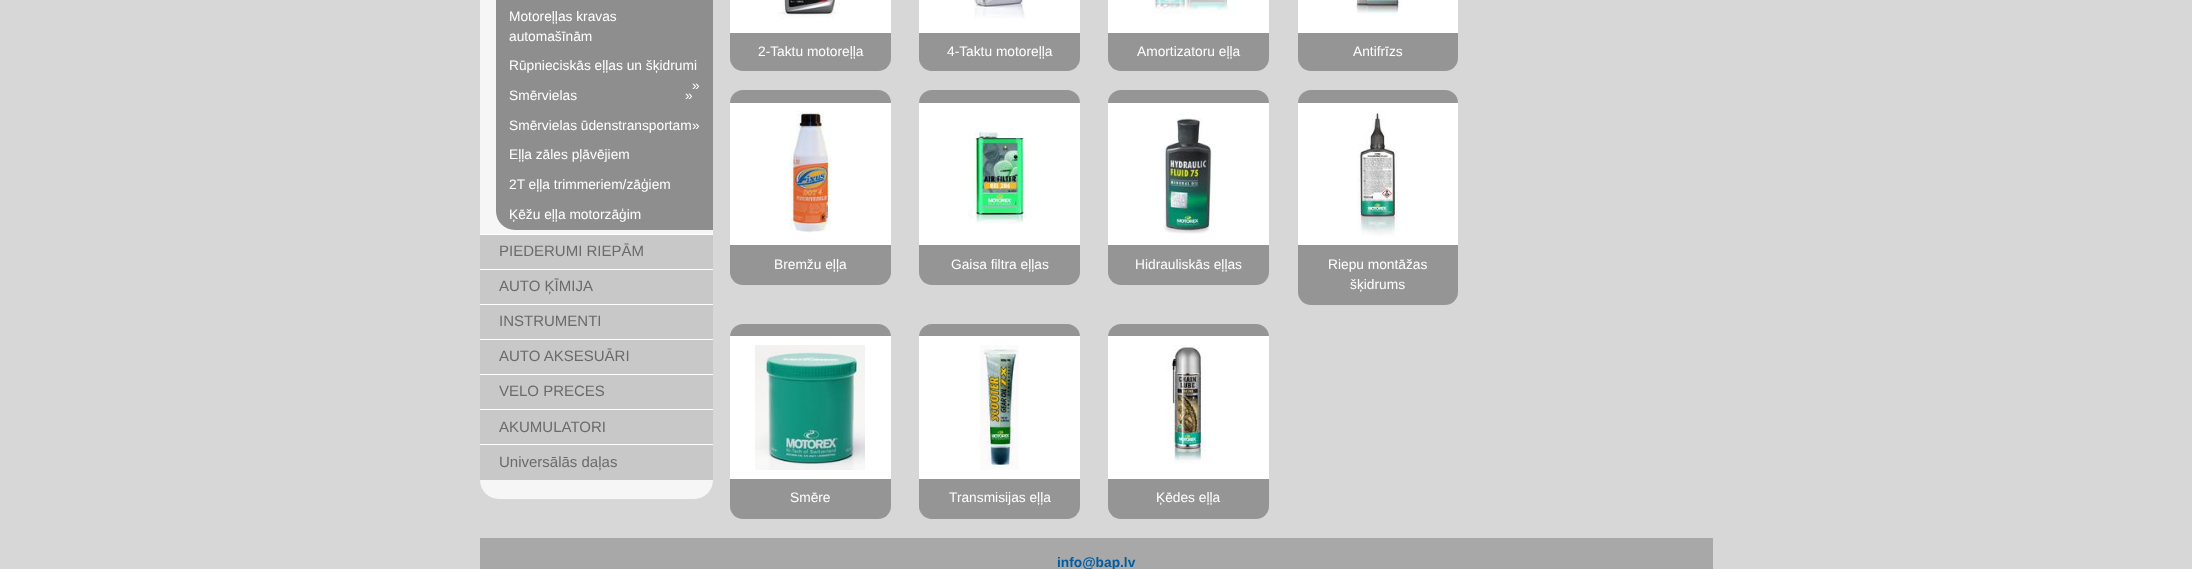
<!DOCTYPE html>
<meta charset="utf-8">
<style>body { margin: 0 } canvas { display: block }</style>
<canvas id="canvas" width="2192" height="569"></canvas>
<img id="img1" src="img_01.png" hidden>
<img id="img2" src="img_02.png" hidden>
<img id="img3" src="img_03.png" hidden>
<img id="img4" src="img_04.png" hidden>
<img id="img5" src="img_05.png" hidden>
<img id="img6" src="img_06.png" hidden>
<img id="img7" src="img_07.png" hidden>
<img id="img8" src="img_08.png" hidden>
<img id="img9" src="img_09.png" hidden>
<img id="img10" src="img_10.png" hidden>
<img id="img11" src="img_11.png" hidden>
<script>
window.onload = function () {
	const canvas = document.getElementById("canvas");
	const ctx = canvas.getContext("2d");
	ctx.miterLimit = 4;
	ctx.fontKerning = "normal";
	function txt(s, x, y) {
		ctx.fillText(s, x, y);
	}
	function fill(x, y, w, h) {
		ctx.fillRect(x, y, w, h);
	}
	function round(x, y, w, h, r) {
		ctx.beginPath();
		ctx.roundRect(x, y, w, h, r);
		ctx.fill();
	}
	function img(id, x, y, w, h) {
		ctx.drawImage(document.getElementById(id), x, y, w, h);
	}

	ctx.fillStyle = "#D7D7D7";
	fill(0, 0, 2192, 569);
	ctx.fillStyle = "#F6F6F6";
	round(480, -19, 233, 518, 19);
	ctx.fillStyle = "#8E8E8E";
	ctx.beginPath();
	ctx.moveTo(496, -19);
	ctx.lineTo(713, -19);
	ctx.lineTo(713, 230);
	ctx.lineTo(515, 230);
	ctx.bezierCurveTo(504.5, 230, 496, 221.5, 496, 211);
	ctx.closePath();
	ctx.fill();
	ctx.fillStyle = "#C8C8C8";
	fill(480, 235, 233, 34);
	ctx.fillStyle = "#FFFFFF";
	fill(480, 234, 233, 1);
	ctx.fillStyle = "#C8C8C8";
	fill(480, 270, 233, 34);
	ctx.fillStyle = "#FFFFFF";
	fill(480, 269, 233, 1);
	ctx.fillStyle = "#C8C8C8";
	fill(480, 305, 233, 34);
	ctx.fillStyle = "#FFFFFF";
	fill(480, 304, 233, 1);
	ctx.fillStyle = "#C8C8C8";
	fill(480, 340, 233, 34);
	ctx.fillStyle = "#FFFFFF";
	fill(480, 339, 233, 1);
	ctx.fillStyle = "#C8C8C8";
	fill(480, 375, 233, 34);
	ctx.fillStyle = "#FFFFFF";
	fill(480, 374, 233, 1);
	ctx.fillStyle = "#C8C8C8";
	fill(480, 410, 233, 34);
	ctx.fillStyle = "#FFFFFF";
	fill(480, 409, 233, 1);
	ctx.fillStyle = "#C8C8C8";
	fill(480, 445, 233, 35);
	ctx.fillStyle = "#FFFFFF";
	fill(480, 444, 233, 1);
	ctx.fillStyle = "#959595";
	round(730, -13, 161, 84, 13);
	ctx.fillStyle = "#FFFFFF";
	fill(730, 0, 161, 33);
	img("img1", 777, 0, 63, 19);
	ctx.fillStyle = "#959595";
	round(919, -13, 161, 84, 13);
	ctx.fillStyle = "#FFFFFF";
	fill(919, 0, 161, 33);
	img("img2", 974, 0, 51, 19);
	ctx.fillStyle = "#959595";
	round(1108, -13, 161, 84, 13);
	ctx.fillStyle = "#FFFFFF";
	fill(1108, 0, 161, 33);
	img("img3", 1154, 0, 81, 14);
	ctx.fillStyle = "#959595";
	round(1298, -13, 160, 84, 13);
	ctx.fillStyle = "#FFFFFF";
	fill(1298, 0, 160, 33);
	img("img4", 1355, 0, 46, 15);
	ctx.fillStyle = "#959595";
	round(730, 90, 161, 195, 13);
	ctx.fillStyle = "#FFFFFF";
	fill(730, 103, 161, 142);
	img("img5", 790, 111, 41, 122);
	ctx.fillStyle = "#959595";
	round(919, 90, 161, 195, 13);
	ctx.fillStyle = "#FFFFFF";
	fill(919, 103, 161, 142);
	img("img6", 968, 131, 65, 93);
	ctx.fillStyle = "#959595";
	round(1108, 90, 161, 195, 13);
	ctx.fillStyle = "#FFFFFF";
	fill(1108, 103, 161, 142);
	img("img7", 1163, 118, 53, 116);
	ctx.fillStyle = "#959595";
	round(1298, 90, 160, 215, 13);
	ctx.fillStyle = "#FFFFFF";
	fill(1298, 103, 160, 142);
	img("img8", 1357, 111, 41, 125);
	ctx.fillStyle = "#959595";
	round(730, 324, 161, 195, 13);
	ctx.fillStyle = "#FFFFFF";
	fill(730, 336, 161, 143);
	img("img9", 755, 345, 110, 125);
	ctx.fillStyle = "#959595";
	round(919, 324, 161, 195, 13);
	ctx.fillStyle = "#FFFFFF";
	fill(919, 336, 161, 143);
	img("img10", 980, 345, 39, 125);
	ctx.fillStyle = "#959595";
	round(1108, 324, 161, 195, 13);
	ctx.fillStyle = "#FFFFFF";
	fill(1108, 336, 161, 143);
	img("img11", 1166, 345, 40, 118);
	ctx.fillStyle = "#A8A8A8";
	fill(480, 538, 1233, 31);
	ctx.font = "13.75px Liberation Sans";
	ctx.fillStyle = "#FFFFFF";
	txt("Motoreļļas kravas", 509, 21);
	txt("automašīnām", 509, 41);
	txt("Rūpnieciskās eļļas un šķidrumi", 509, 70);
	txt("»", 692, 90);
	txt("Smērvielas", 509, 100);
	txt("»", 685, 100);
	txt("Smērvielas ūdenstransportam", 509, 130);
	txt("»", 692, 130);
	txt("Eļļa zāles pļāvējiem", 509, 159);
	txt("2T eļļa trimmeriem/zāģiem", 509, 189);
	txt("Ķēžu eļļa motorzāģim", 509, 219);
	ctx.font = "15px Liberation Sans";
	ctx.fillStyle = "#6B6B6B";
	txt("PIEDERUMI RIEPĀM", 499, 256);
	txt("AUTO ĶĪMIJA", 499, 291);
	txt("INSTRUMENTI", 499, 326);
	txt("AUTO AKSESUĀRI", 499, 361);
	txt("VELO PRECES", 499, 396);
	txt("AKUMULATORI", 499, 432);
	txt("Universālās daļas", 499, 467);
	ctx.font = "13.75px Liberation Sans";
	ctx.fillStyle = "#FFFFFF";
	txt("2-Taktu motoreļļa", 758, 56);
	txt("4-Taktu motoreļļa", 947, 56);
	txt("Amortizatoru eļļa", 1137, 56);
	txt("Antifrīzs", 1353, 56);
	txt("Bremžu eļļa", 774, 269);
	txt("Gaisa filtra eļļas", 951, 269);
	txt("Hidrauliskās eļļas", 1135, 269);
	txt("Riepu montāžas", 1328, 269);
	txt("šķidrums", 1350, 289);
	txt("Smēre", 790, 502);
	txt("Transmisijas eļļa", 949, 502);
	txt("Ķēdes eļļa", 1156, 502);
	ctx.font = "bold 13.75px Liberation Sans";
	ctx.fillStyle = "#005DA3";
	txt("info@bap.lv", 1057, 567);
};
</script>
